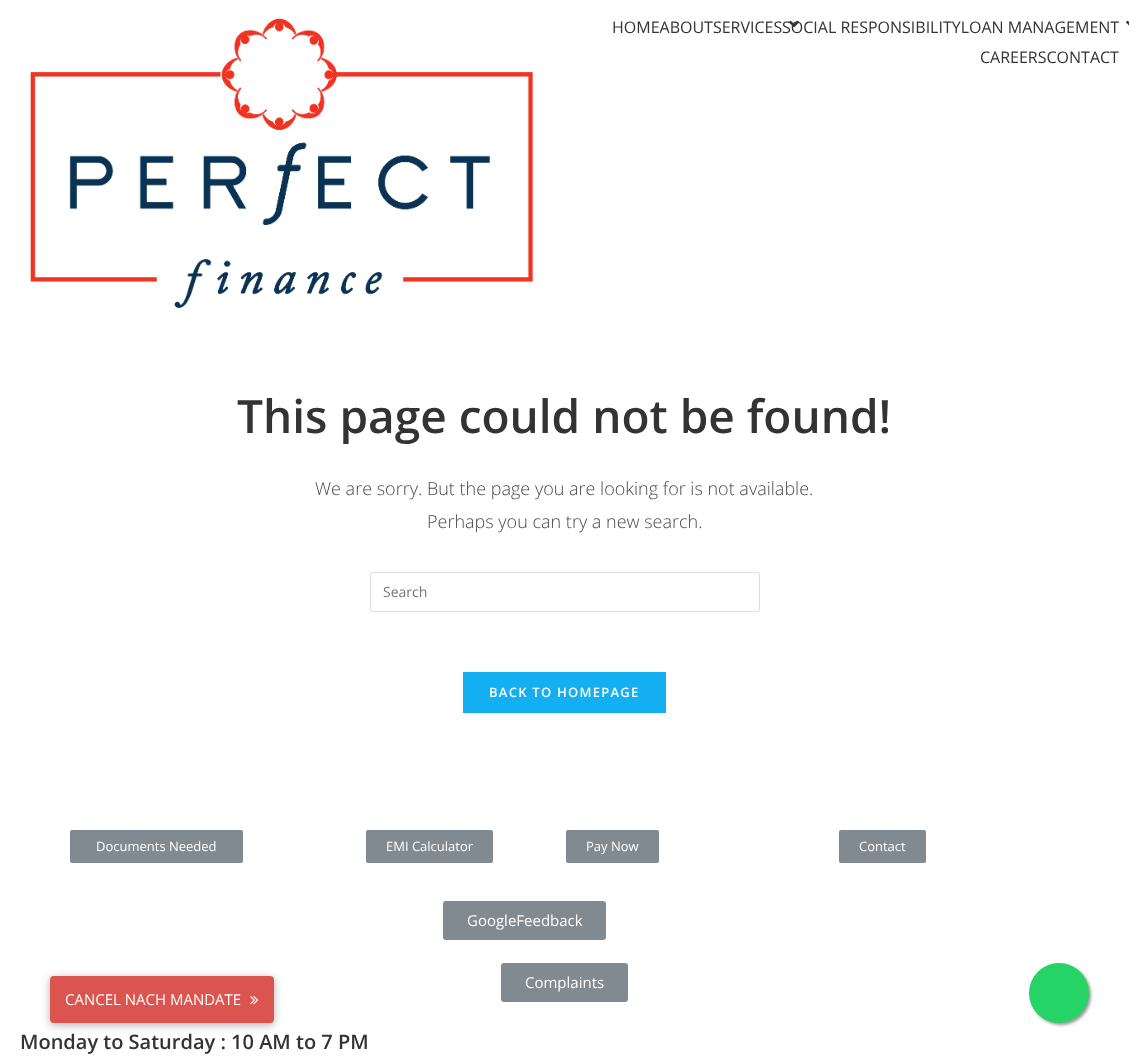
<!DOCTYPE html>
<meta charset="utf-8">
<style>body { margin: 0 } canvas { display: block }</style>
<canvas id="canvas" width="1129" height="1063"></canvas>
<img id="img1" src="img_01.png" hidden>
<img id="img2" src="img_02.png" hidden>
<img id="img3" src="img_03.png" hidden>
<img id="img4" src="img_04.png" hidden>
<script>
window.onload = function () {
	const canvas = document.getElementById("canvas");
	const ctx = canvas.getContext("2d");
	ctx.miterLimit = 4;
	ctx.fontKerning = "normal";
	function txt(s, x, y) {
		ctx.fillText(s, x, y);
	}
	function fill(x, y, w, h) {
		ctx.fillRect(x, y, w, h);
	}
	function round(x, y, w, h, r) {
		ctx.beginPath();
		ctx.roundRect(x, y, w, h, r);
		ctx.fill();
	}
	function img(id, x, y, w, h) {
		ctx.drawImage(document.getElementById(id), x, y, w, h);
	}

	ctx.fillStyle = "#FFFFFF";
	fill(0, 0, 1129, 1063);
	img("img1", 30, 18, 504, 291);
	img("img2", 789, 20, 10, 8);
	img("img3", 1126, 20, 3, 6);
	ctx.beginPath();
	ctx.roundRect(370.5, 572.5, 389, 39, 2.5);
	ctx.strokeStyle = "#DDDDDD";
	ctx.stroke();
	ctx.fillStyle = "#13AFF0";
	fill(463, 672, 203, 41);
	ctx.fillStyle = "#818A91";
	round(70, 830, 173, 33, 2);
	round(366, 830, 127, 33, 2);
	round(566, 830, 93, 33, 2);
	round(839, 830, 87, 33, 2);
	round(443, 901, 163, 39, 3);
	round(501, 963, 127, 39, 3);
	ctx.fillStyle = "rgba(33, 33, 33, 0.35)";
	ctx.filter = "blur(4px)";
	ctx.beginPath();
	ctx.roundRect(50, 978, 224, 47, 4);
	ctx.fill();
	ctx.filter = "none";
	ctx.fillStyle = "#DC5450";
	round(50, 976, 224, 47, 4);
	img("img4", 250, 996, 9, 9);
	ctx.fillStyle = "#999999";
	ctx.filter = "blur(1.5px)";
	ctx.beginPath();
	ctx.roundRect(1031, 965, 60, 60, 30);
	ctx.fill();
	ctx.filter = "none";
	ctx.fillStyle = "#25D366";
	ctx.beginPath();
	ctx.arc(1059, 993, 30, 0, Math.PI * 2);
	ctx.fill();
	ctx.font = "16px Open Sans";
	ctx.fillStyle = "#333333";
	txt("HOMEABOUTSERVICES", 612, 33);
	txt("SOCIAL RESPONSIBILITYLOAN MANAGEMENT", 782, 33);
	txt("CAREERSCONTACT", 980, 63);
	ctx.font = "600 46px Open Sans";
	txt("This page could not be found!", 237, 433);
	ctx.font = "300 18px Open Sans";
	ctx.fillStyle = "#4A4A4A";
	txt("We are sorry. But the page you are looking for is not available.", 315, 495);
	txt("Perhaps you can try a new search.", 427, 528);
	ctx.font = "14px Open Sans";
	ctx.fillStyle = "#757575";
	txt("Search", 383, 597);
	ctx.letterSpacing = "1.25px";
	ctx.font = "600 13px Open Sans";
	ctx.fillStyle = "#FFFFFF";
	txt("BACK TO HOMEPAGE", 489, 697);
	ctx.letterSpacing = "0px";
	ctx.font = "13px Open Sans";
	txt("Documents Needed", 96, 851);
	txt("EMI Calculator", 386, 851);
	txt("Pay Now", 586, 851);
	txt("Contact", 859, 851);
	ctx.font = "15px Open Sans";
	txt("GoogleFeedback", 467, 926);
	txt("Complaints", 525, 988);
	ctx.font = "600 20px Open Sans";
	ctx.fillStyle = "#333333";
	txt("Monday to Saturday : 10 AM to 7 PM", 20, 1049);
	ctx.font = "15px Open Sans";
	ctx.fillStyle = "#FFFFFF";
	txt("CANCEL NACH MANDATE", 65, 1005);
};
</script>
